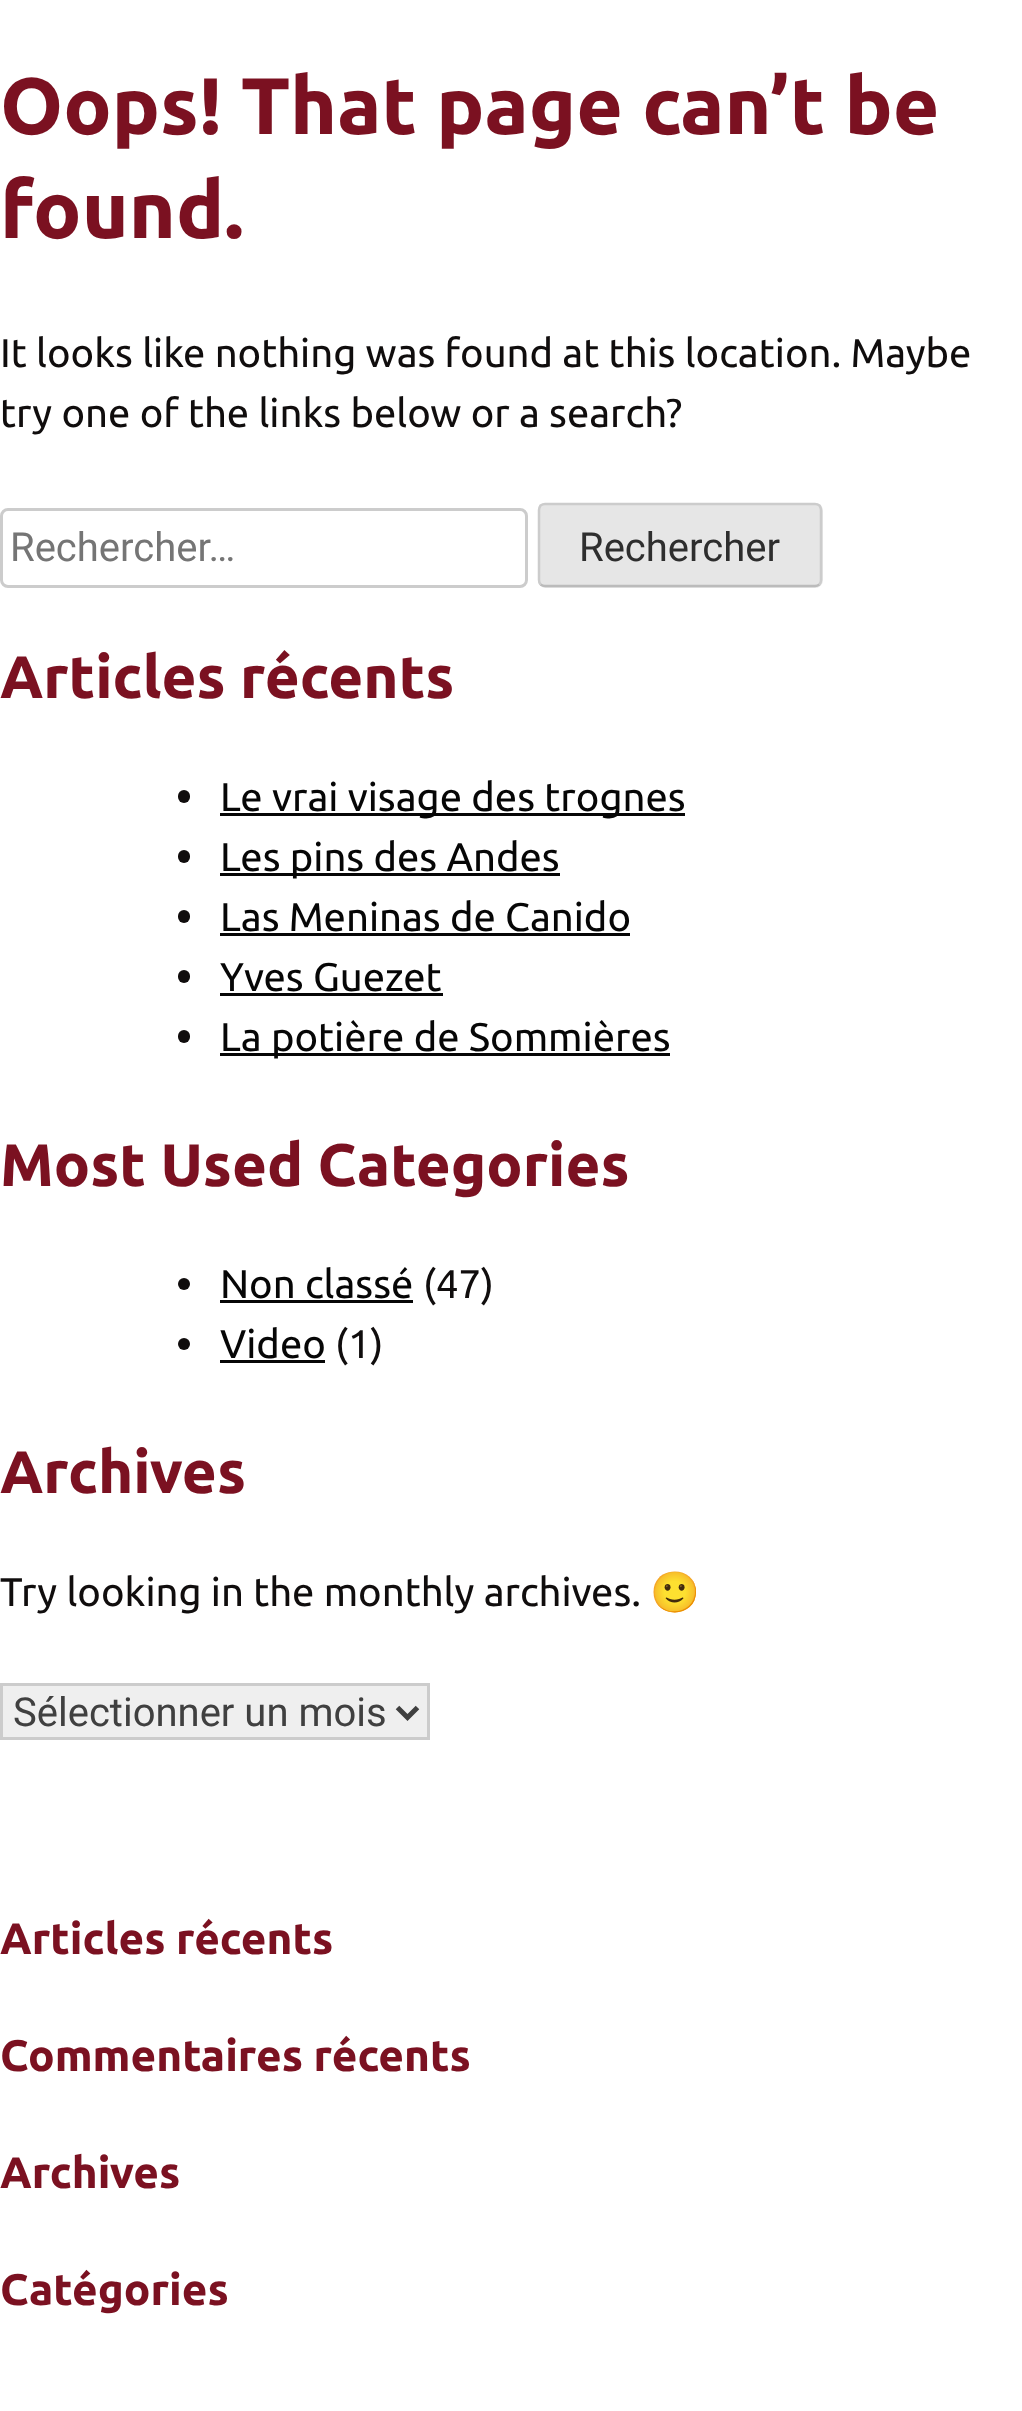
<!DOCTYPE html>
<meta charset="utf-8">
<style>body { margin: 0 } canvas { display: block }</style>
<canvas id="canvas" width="1022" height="2411"></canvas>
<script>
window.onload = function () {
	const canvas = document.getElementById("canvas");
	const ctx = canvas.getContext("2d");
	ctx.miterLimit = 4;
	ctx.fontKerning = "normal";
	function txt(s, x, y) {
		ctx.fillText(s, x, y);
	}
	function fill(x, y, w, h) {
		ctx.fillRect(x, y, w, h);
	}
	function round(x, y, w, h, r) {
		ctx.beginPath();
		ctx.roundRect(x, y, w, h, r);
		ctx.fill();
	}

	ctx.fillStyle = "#FFFFFF";
	fill(0, 0, 1022, 2411);
	ctx.beginPath();
	ctx.roundRect(1.5, 509.5, 525, 77, 6.5);
	ctx.strokeStyle = "#CCCCCC";
	ctx.lineWidth = 3;
	ctx.stroke();
	ctx.fillStyle = "#E6E6E6";
	round(538, 503, 285, 85, 8);
	ctx.beginPath();
	ctx.moveTo(819.5, 584.5);
	ctx.bezierCurveTo(818, 585.5, 816.5, 586, 815, 586);
	ctx.lineTo(545, 586);
	ctx.bezierCurveTo(543.5, 586, 542, 585.5, 540.5, 584.5);
	ctx.strokeStyle = "#BBBBBB";
	ctx.lineWidth = 2.5;
	ctx.stroke();
	ctx.beginPath();
	ctx.moveTo(540.5, 584.5);
	ctx.bezierCurveTo(539.5, 583, 539, 581.5, 539, 580);
	ctx.lineTo(539, 510);
	ctx.bezierCurveTo(539, 508.5, 539.5, 507, 540.5, 505.5);
	ctx.bezierCurveTo(542, 504.5, 543.5, 504, 545, 504);
	ctx.lineTo(815, 504);
	ctx.bezierCurveTo(816.5, 504, 818, 504.5, 819.5, 505.5);
	ctx.bezierCurveTo(820.5, 507, 821, 508.5, 821, 510);
	ctx.lineTo(821, 580);
	ctx.bezierCurveTo(821, 581.5, 820.5, 583, 819.5, 584.5);
	ctx.strokeStyle = "#CCCCCC";
	ctx.stroke();
	ctx.fillStyle = "#100D0D";
	round(178, 790, 12, 13, 6);
	ctx.fillStyle = "#060606";
	fill(220, 813, 465, 3);
	ctx.fillStyle = "#100D0D";
	round(178, 850, 12, 13, 6);
	ctx.fillStyle = "#060606";
	fill(220, 873, 340, 3);
	ctx.fillStyle = "#100D0D";
	round(178, 910, 12, 13, 6);
	ctx.fillStyle = "#060606";
	fill(220, 933, 410, 3);
	ctx.fillStyle = "#100D0D";
	round(178, 970, 12, 13, 6);
	ctx.fillStyle = "#060606";
	fill(220, 993, 223, 3);
	ctx.fillStyle = "#100D0D";
	round(178, 1030, 12, 13, 6);
	ctx.fillStyle = "#060606";
	fill(220, 1053, 450, 3);
	ctx.fillStyle = "#100D0D";
	ctx.beginPath();
	ctx.arc(184, 1284, 6, 0, Math.PI * 2);
	ctx.fill();
	ctx.fillStyle = "#060606";
	fill(220, 1300, 193, 3);
	ctx.fillStyle = "#100D0D";
	ctx.beginPath();
	ctx.arc(184, 1344, 6, 0, Math.PI * 2);
	ctx.fill();
	ctx.fillStyle = "#060606";
	fill(220, 1360, 105, 3);
	ctx.fillStyle = "#EFEFEF";
	ctx.beginPath();
	ctx.rect(1.5, 1684.5, 427, 54);
	ctx.fill();
	ctx.lineWidth = 3;
	ctx.stroke();
	ctx.beginPath();
	ctx.moveTo(397.5, 1707.5);
	ctx.lineTo(407.5, 1717.5);
	ctx.lineTo(417.5, 1707.5);
	ctx.strokeStyle = "#404040";
	ctx.lineWidth = 5;
	ctx.stroke();
	ctx.font = "bold 80px Ubuntu";
	ctx.fillStyle = "#7B1121";
	txt("Oops! That page can’t be", 0, 134);
	txt("found.", 0, 238);
	ctx.font = "40px Ubuntu";
	ctx.fillStyle = "#100D0D";
	txt("It looks like nothing was found at this location. Maybe", 0, 367);
	txt("try one of the links below or a search?", 0, 427);
	ctx.font = "40px Roboto";
	ctx.fillStyle = "#757575";
	txt("Rechercher…", 10, 561);
	ctx.fillStyle = "#2E2E2E";
	txt("Rechercher", 579, 561);
	ctx.font = "bold 60px Ubuntu";
	ctx.fillStyle = "#7B1121";
	txt("Articles récents", 0, 698);
	ctx.font = "40px Ubuntu";
	ctx.fillStyle = "#060606";
	txt("Le vrai visage des trognes", 220, 811);
	txt("Les pins des Andes", 220, 871);
	txt("Las Meninas de Canido", 220, 931);
	txt("Yves Guezet", 220, 991);
	txt("La potière de Sommières", 220, 1051);
	ctx.font = "bold 60px Ubuntu";
	ctx.fillStyle = "#7B1121";
	txt("Most Used Categories", 0, 1186);
	ctx.font = "40px Ubuntu";
	ctx.fillStyle = "#060606";
	txt("Non classé", 220, 1298);
	ctx.fillStyle = "#100D0D";
	txt("(47)", 423, 1298);
	ctx.fillStyle = "#060606";
	txt("Video", 220, 1358);
	ctx.fillStyle = "#100D0D";
	txt("(1)", 335, 1358);
	ctx.font = "bold 60px Ubuntu";
	ctx.fillStyle = "#7B1121";
	txt("Archives", 0, 1493);
	ctx.font = "40px Ubuntu";
	ctx.fillStyle = "#100D0D";
	txt("Try looking in the monthly archives.", 0, 1606);
	ctx.font = "40px Noto Color Emoji";
	txt("🙂", 650, 1606);
	ctx.font = "40px Roboto";
	ctx.fillStyle = "#404040";
	txt("Sélectionner un mois", 13, 1726);
	ctx.font = "bold 44px Ubuntu";
	ctx.fillStyle = "#7B1121";
	txt("Articles récents", 0, 1954);
	txt("Commentaires récents", 0, 2071);
	txt("Archives", 0, 2188);
	txt("Catégories", 0, 2305);
};
</script>
